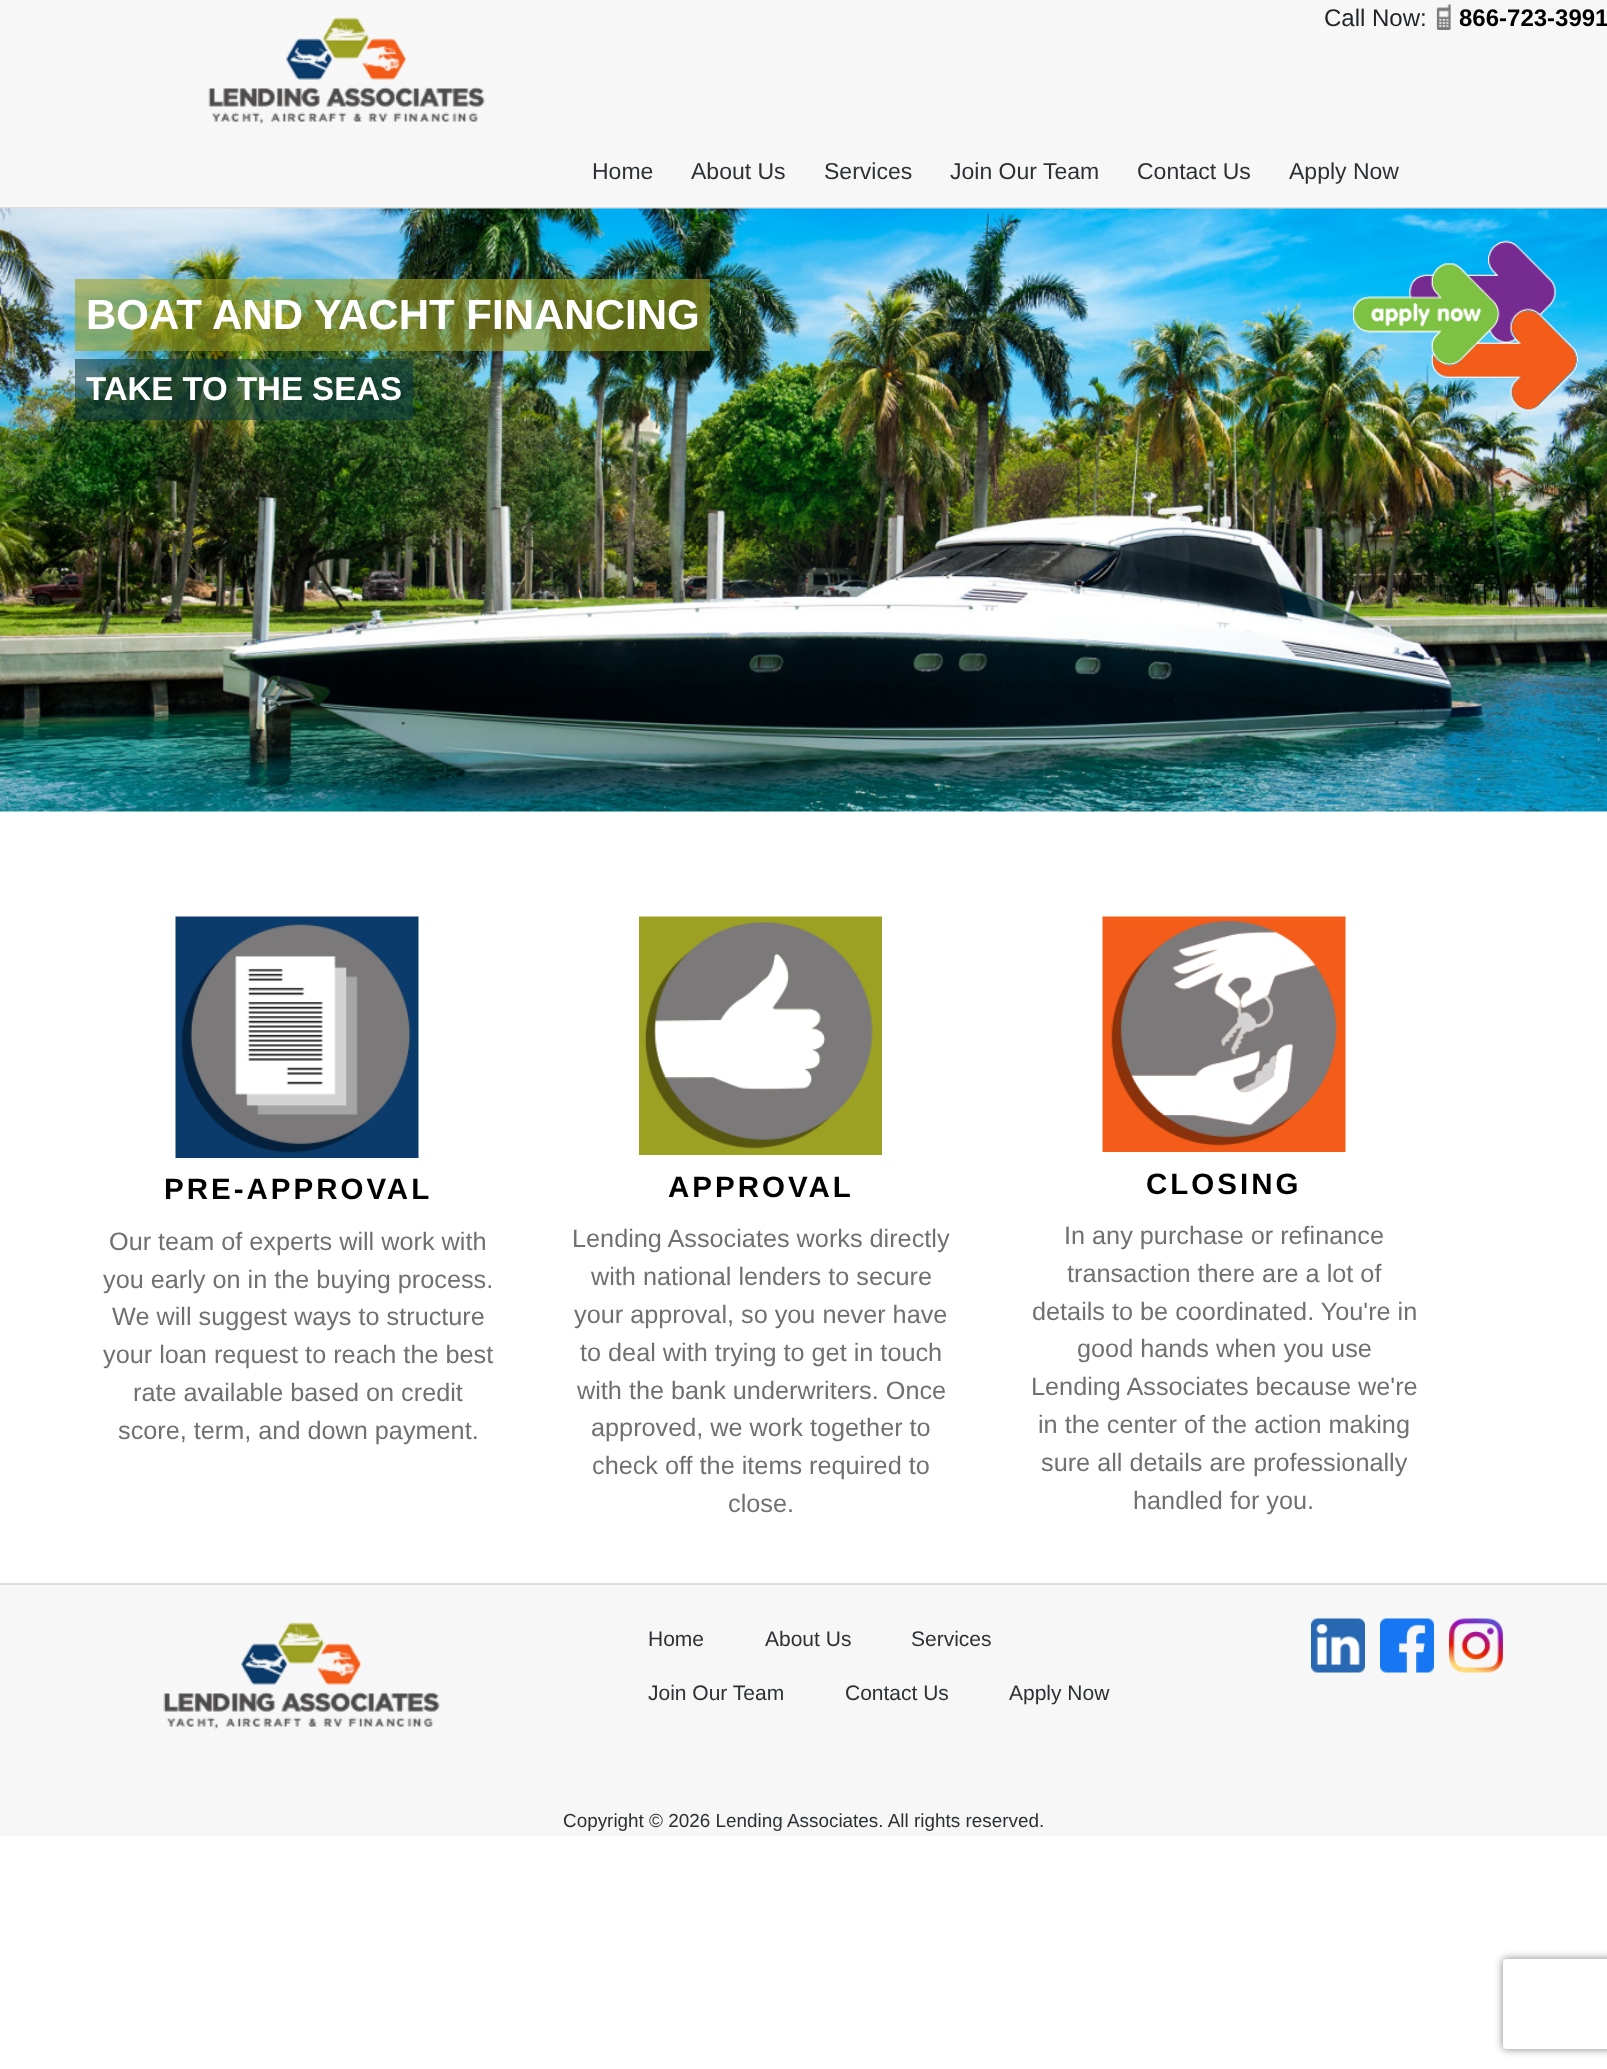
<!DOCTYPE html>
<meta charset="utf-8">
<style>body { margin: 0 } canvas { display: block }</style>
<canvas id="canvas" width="1607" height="2069"></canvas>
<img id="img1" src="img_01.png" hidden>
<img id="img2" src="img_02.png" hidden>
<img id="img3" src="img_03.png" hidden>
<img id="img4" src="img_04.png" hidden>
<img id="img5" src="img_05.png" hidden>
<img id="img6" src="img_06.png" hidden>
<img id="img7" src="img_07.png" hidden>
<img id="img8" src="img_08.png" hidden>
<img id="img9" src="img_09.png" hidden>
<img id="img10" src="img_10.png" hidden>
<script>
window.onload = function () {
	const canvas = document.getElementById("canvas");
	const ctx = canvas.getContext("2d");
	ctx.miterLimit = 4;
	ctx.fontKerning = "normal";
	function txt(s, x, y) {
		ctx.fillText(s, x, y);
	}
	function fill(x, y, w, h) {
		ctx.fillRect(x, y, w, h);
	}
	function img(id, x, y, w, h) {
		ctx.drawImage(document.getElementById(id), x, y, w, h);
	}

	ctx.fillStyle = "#FFFFFF";
	fill(0, 0, 1607, 2069);
	ctx.fillStyle = "#F7F7F7";
	fill(0, 0, 1607, 207);
	ctx.fillStyle = "#DDDDDD";
	fill(0, 207, 1607, 2);
	img("img1", 208, 17, 277, 108);
	img("img2", 1436, 4, 15, 26);
	img("img3", 0, 208, 1607, 604);
	ctx.fillStyle = "rgba(156, 160, 35, 0.6)";
	fill(75, 279, 635, 72);
	ctx.fillStyle = "rgba(11, 59, 64, 0.6)";
	fill(75, 359, 338, 61);
	img("img4", 1353, 240, 225, 171);
	img("img5", 175, 916, 244, 242);
	img("img6", 639, 916, 243, 239);
	img("img7", 1102, 916, 244, 236);
	ctx.fillStyle = "#F7F7F7";
	fill(0, 1585, 1607, 251);
	ctx.fillStyle = "#DDDDDD";
	fill(0, 1583, 1607, 2);
	img("img1", 163, 1622, 277, 108);
	img("img8", 1311, 1618, 54, 55);
	img("img9", 1380, 1618, 54, 55);
	img("img10", 1449, 1618, 54, 55);
	ctx.save();
	ctx.beginPath();
	ctx.moveTo(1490, 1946);
	ctx.lineTo(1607, 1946);
	ctx.lineTo(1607, 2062);
	ctx.lineTo(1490, 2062);
	ctx.closePath();
	ctx.moveTo(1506, 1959);
	ctx.lineTo(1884, 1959);
	ctx.bezierCurveTo(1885.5, 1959, 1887, 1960.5, 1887, 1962);
	ctx.lineTo(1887, 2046);
	ctx.bezierCurveTo(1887, 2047.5, 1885.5, 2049, 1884, 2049);
	ctx.lineTo(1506, 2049);
	ctx.bezierCurveTo(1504.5, 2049, 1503, 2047.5, 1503, 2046);
	ctx.lineTo(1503, 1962);
	ctx.bezierCurveTo(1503, 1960.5, 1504.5, 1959, 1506, 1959);
	ctx.closePath();
	ctx.clip("evenodd");
	ctx.fillStyle = "#808080";
	ctx.filter = "blur(4px)";
	ctx.beginPath();
	ctx.roundRect(1503, 1959, 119, 90, 3);
	ctx.fill();
	ctx.filter = "none";
	ctx.restore();
	ctx.font = "24px Liberation Sans";
	ctx.fillStyle = "#212529";
	txt("Call Now:", 1324, 26);
	ctx.font = "bold 24px Liberation Sans";
	ctx.fillStyle = "#000000";
	txt("866-723-3991", 1459, 26);
	ctx.font = "23px Liberation Sans";
	ctx.fillStyle = "#2D3134";
	txt("Home", 592, 179);
	txt("About Us", 691, 179);
	txt("Services", 824, 179);
	txt("Join Our Team", 950, 179);
	txt("Contact Us", 1137, 179);
	txt("Apply Now", 1289, 179);
	ctx.font = "bold 42px Liberation Sans";
	ctx.fillStyle = "#FFFFFF";
	txt("BOAT AND YACHT FINANCING", 86, 329);
	ctx.font = "bold 33px Liberation Sans";
	txt("TAKE TO THE SEAS", 86, 400);
	ctx.letterSpacing = "3px";
	ctx.font = "bold 29.5px Liberation Sans";
	ctx.fillStyle = "#000000";
	txt("PRE-APPROVAL", 164, 1199);
	ctx.letterSpacing = "0px";
	ctx.font = "25.25px Liberation Sans";
	ctx.fillStyle = "#707070";
	txt("Our team of experts will work with", 109, 1250);
	txt("you early on in the buying process.", 103, 1288);
	txt("We will suggest ways to structure", 112, 1325);
	txt("your loan request to reach the best", 103, 1363);
	txt("rate available based on credit", 133, 1401);
	txt("score, term, and down payment.", 118, 1439);
	ctx.letterSpacing = "3px";
	ctx.font = "bold 29.5px Liberation Sans";
	ctx.fillStyle = "#000000";
	txt("APPROVAL", 668, 1197);
	ctx.letterSpacing = "0px";
	ctx.font = "25.25px Liberation Sans";
	ctx.fillStyle = "#707070";
	txt("Lending Associates works directly", 572, 1247);
	txt("with national lenders to secure", 591, 1285);
	txt("your approval, so you never have", 574, 1323);
	txt("to deal with trying to get in touch", 580, 1361);
	txt("with the bank underwriters. Once", 577, 1399);
	txt("approved, we work together to", 591, 1436);
	txt("check off the items required to", 592, 1474);
	txt("close.", 728, 1512);
	ctx.letterSpacing = "3px";
	ctx.font = "bold 29.5px Liberation Sans";
	ctx.fillStyle = "#000000";
	txt("CLOSING", 1146, 1194);
	ctx.letterSpacing = "0px";
	ctx.font = "25.25px Liberation Sans";
	ctx.fillStyle = "#707070";
	txt("In any purchase or refinance", 1064, 1244);
	txt("transaction there are a lot of", 1067, 1282);
	txt("details to be coordinated. You're in", 1032, 1320);
	txt("good hands when you use", 1077, 1357);
	txt("Lending Associates because we're", 1031, 1395);
	txt("in the center of the action making", 1038, 1433);
	txt("sure all details are professionally", 1041, 1471);
	txt("handled for you.", 1133, 1509);
	ctx.font = "21px Liberation Sans";
	ctx.fillStyle = "#2D3134";
	txt("Home", 648, 1646);
	txt("About Us", 765, 1646);
	txt("Services", 911, 1646);
	txt("Join Our Team", 648, 1700);
	txt("Contact Us", 845, 1700);
	txt("Apply Now", 1009, 1700);
	ctx.font = "18.9px Liberation Sans";
	txt("Copyright © 2026 Lending Associates. All rights reserved.", 563, 1827);
};
</script>
